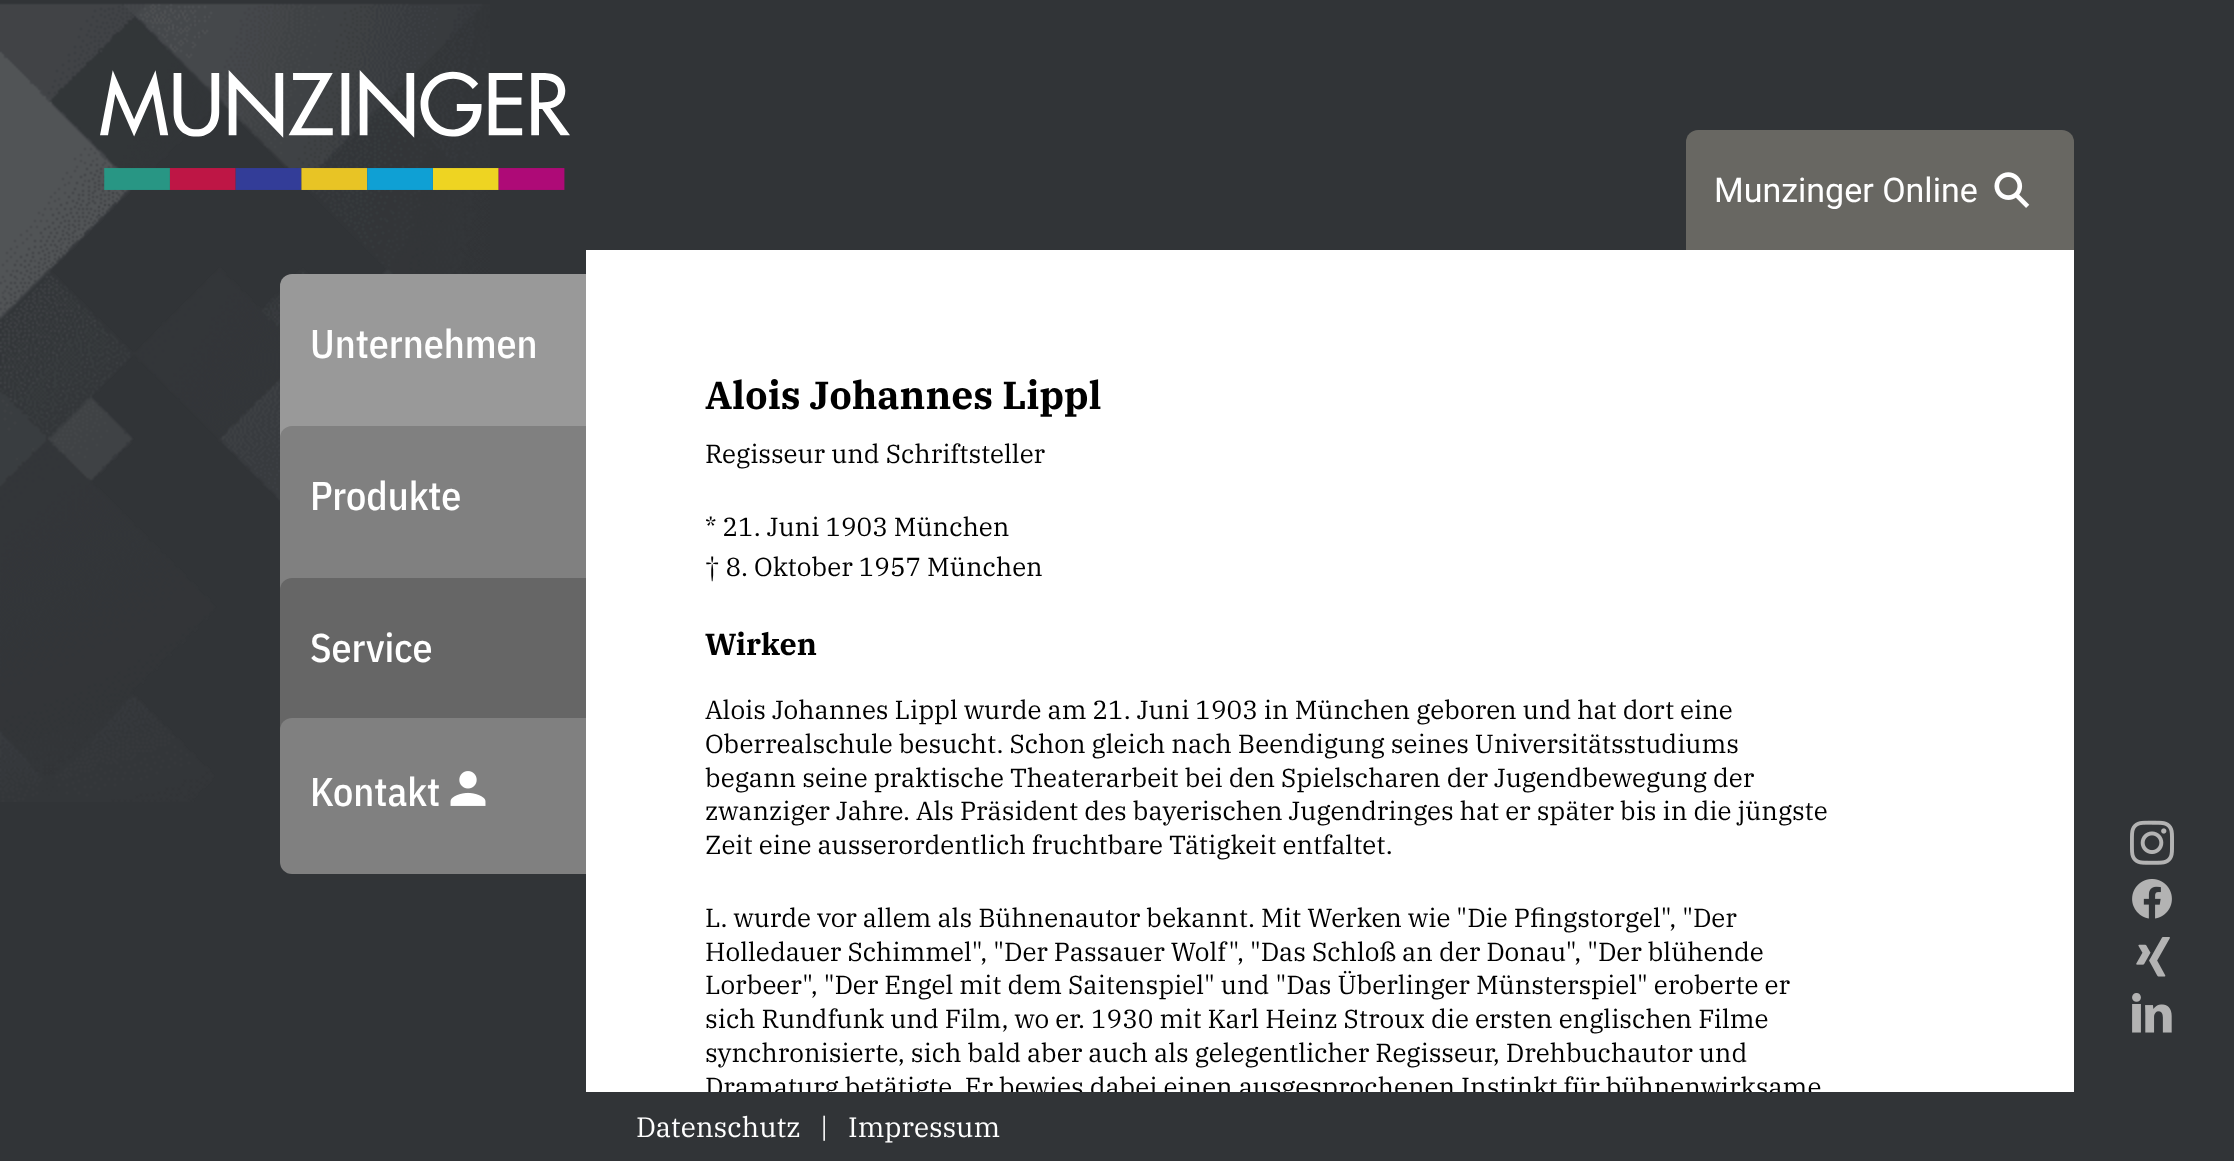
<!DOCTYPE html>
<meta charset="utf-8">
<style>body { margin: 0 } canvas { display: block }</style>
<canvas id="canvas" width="2234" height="1161"></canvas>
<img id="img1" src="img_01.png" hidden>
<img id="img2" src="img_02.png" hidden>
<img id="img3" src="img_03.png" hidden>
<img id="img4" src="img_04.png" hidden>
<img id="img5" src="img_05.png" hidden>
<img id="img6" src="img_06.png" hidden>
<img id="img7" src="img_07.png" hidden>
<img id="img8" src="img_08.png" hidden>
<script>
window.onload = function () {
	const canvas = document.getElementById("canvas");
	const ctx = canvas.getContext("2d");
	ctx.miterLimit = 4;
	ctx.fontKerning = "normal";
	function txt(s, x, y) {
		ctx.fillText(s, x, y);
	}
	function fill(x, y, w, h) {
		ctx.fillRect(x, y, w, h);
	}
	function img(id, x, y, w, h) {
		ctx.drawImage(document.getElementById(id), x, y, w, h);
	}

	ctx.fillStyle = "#313437";
	fill(0, 0, 2234, 1161);
	img("img1", 0, 3, 490, 799);
	img("img2", 100, 70, 470, 120);
	ctx.fillStyle = "#686762";
	ctx.beginPath();
	ctx.roundRect(1686, 130, 388, 120, [12, 12, 0, 0]);
	ctx.fill();
	img("img3", 1994, 172, 36, 36);
	ctx.fillStyle = "#999999";
	ctx.beginPath();
	ctx.roundRect(280, 274, 306, 176, [12, 0, 0, 0]);
	ctx.fill();
	ctx.fillStyle = "#808080";
	ctx.beginPath();
	ctx.roundRect(280, 426, 306, 164, [12, 0, 0, 0]);
	ctx.fill();
	ctx.fillStyle = "#666666";
	ctx.beginPath();
	ctx.roundRect(280, 578, 306, 152, [12, 0, 0, 0]);
	ctx.fill();
	ctx.fillStyle = "#808080";
	ctx.beginPath();
	ctx.roundRect(280, 718, 306, 156, [12, 0, 0, 12]);
	ctx.fill();
	img("img4", 450, 771, 36, 35);
	ctx.fillStyle = "#FFFFFF";
	fill(586, 250, 1488, 842);
	img("img5", 2130, 820, 44, 45);
	img("img6", 2132, 879, 40, 40);
	img("img7", 2136, 937, 34, 40);
	img("img8", 2132, 993, 40, 40);
	ctx.font = "34px Roboto";
	txt("Munzinger Online", 1714, 202);
	ctx.font = "500 40px IBM Plex Sans Condensed";
	txt("Unternehmen", 310, 358);
	txt("Produkte", 310, 510);
	txt("Service", 310, 662);
	txt("Kontakt", 310, 806);
	ctx.font = "bold 39px IBM Plex Serif";
	ctx.fillStyle = "#000000";
	txt("Alois Johannes Lippl", 705, 409);
	ctx.font = "26px IBM Plex Serif";
	txt("Regisseur und Schriftsteller", 705, 463);
	txt("* 21. Juni 1903 München", 705, 536);
	txt("† 8. Oktober 1957 München", 705, 576);
	ctx.font = "bold 30.5px IBM Plex Serif";
	txt("Wirken", 705, 655);
	ctx.font = "26px IBM Plex Serif";
	txt("Alois Johannes Lippl wurde am 21. Juni 1903 in München geboren und hat dort eine", 705, 719);
	txt("Oberrealschule besucht. Schon gleich nach Beendigung seines Universitätsstudiums", 705, 753);
	txt("begann seine praktische Theaterarbeit bei den Spielscharen der Jugendbewegung der", 705, 787);
	txt("zwanziger Jahre. Als Präsident des bayerischen Jugendringes hat er später bis in die jüngste", 705, 820);
	txt("Zeit eine ausserordentlich fruchtbare Tätigkeit entfaltet.", 705, 854);
	txt("L. wurde vor allem als Bühnenautor bekannt. Mit Werken wie \"Die Pfingstorgel\", \"Der", 705, 927);
	txt("Holledauer Schimmel\", \"Der Passauer Wolf\", \"Das Schloß an der Donau\", \"Der blühende", 705, 961);
	txt("Lorbeer\", \"Der Engel mit dem Saitenspiel\" und \"Das Überlinger Münsterspiel\" eroberte er", 705, 994);
	txt("sich Rundfunk und Film, wo er. 1930 mit Karl Heinz Stroux die ersten englischen Filme", 705, 1028);
	txt("synchronisierte, sich bald aber auch als gelegentlicher Regisseur, Drehbuchautor und", 705, 1062);
	ctx.save();
	ctx.beginPath();
	ctx.rect(586, 250, 1488, 842);
	ctx.clip();
	txt("Dramaturg betätigte. Er bewies dabei einen ausgesprochenen Instinkt für bühnenwirksame", 705, 1096);
	ctx.restore();
	ctx.font = "28px IBM Plex Serif";
	ctx.fillStyle = "#FFFFFF";
	txt("Datenschutz", 636, 1137);
	txt("|", 820, 1137);
	txt("Impressum", 848, 1137);
};
</script>
